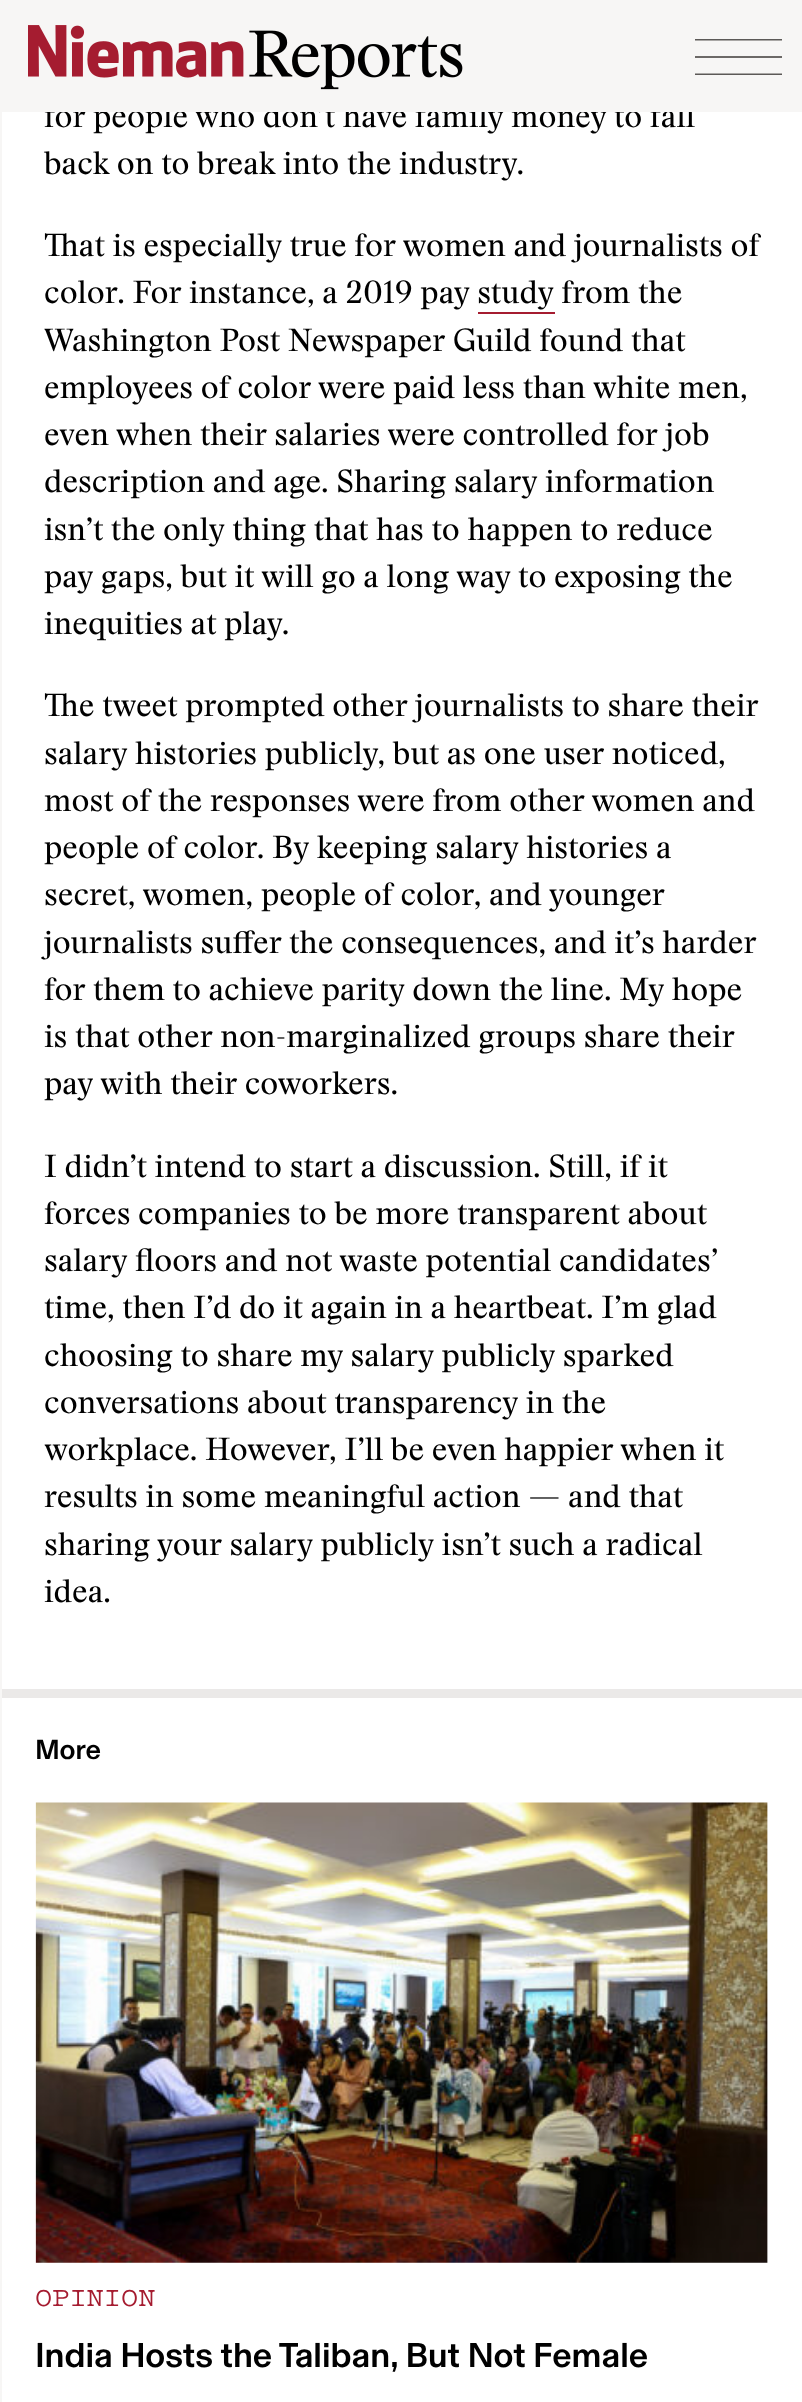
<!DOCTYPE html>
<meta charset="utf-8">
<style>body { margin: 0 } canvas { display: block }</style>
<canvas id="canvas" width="802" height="2402"></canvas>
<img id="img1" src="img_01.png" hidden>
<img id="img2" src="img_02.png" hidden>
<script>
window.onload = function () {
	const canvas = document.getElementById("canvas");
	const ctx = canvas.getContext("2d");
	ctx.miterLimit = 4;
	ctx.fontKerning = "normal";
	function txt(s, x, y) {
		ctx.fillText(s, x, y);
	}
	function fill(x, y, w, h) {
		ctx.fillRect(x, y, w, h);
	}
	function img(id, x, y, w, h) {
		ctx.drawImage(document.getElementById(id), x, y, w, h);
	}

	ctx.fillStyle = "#F7F6F5";
	fill(0, 0, 802, 2402);
	img("img1", 28, 25, 435, 65);
	ctx.fillStyle = "#6C6967";
	fill(695, 56, 87, 2);
	ctx.save();
	ctx.beginPath();
	ctx.rect(695, 39, 87, 36);
	ctx.clip();
	ctx.beginPath();
	ctx.moveTo(695, 74.5);
	ctx.lineTo(782, 74.5);
	ctx.strokeStyle = "#5C5957";
	ctx.lineWidth = 1.8;
	ctx.stroke();
	ctx.beginPath();
	ctx.moveTo(695, 39.5);
	ctx.lineTo(782, 39.5);
	ctx.stroke();
	ctx.restore();
	ctx.fillStyle = "#FFFFFF";
	fill(2, 112, 800, 2290);
	ctx.fillStyle = "#A51C30";
	fill(478, 312, 77, 2);
	ctx.fillStyle = "#EBE9E8";
	fill(2, 1689, 800, 9);
	img("img2", 35, 1802, 733, 461);
	ctx.font = "31.5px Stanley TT";
	ctx.fillStyle = "#000000";
	txt("for people who don’t have family money to fall", 44, 127);
	ctx.fillStyle = "#F7F6F5";
	fill(44, 104, 648, 8);
	ctx.fillStyle = "#000000";
	txt("back on to break into the industry.", 44, 174);
	txt("That is especially true for women and journalists of", 44, 256);
	txt("color. For instance, a 2019 pay study from the", 44, 303);
	txt("Washington Post Newspaper Guild found that", 44, 351);
	txt("employees of color were paid less than white men,", 44, 398);
	txt("even when their salaries were controlled for job", 44, 445);
	txt("description and age. Sharing salary information", 44, 492);
	txt("isn’t the only thing that has to happen to reduce", 44, 540);
	txt("pay gaps, but it will go a long way to exposing the", 44, 587);
	txt("inequities at play.", 44, 634);
	txt("The tweet prompted other journalists to share their", 44, 716);
	txt("salary histories publicly, but as one user noticed,", 44, 764);
	txt("most of the responses were from other women and", 44, 811);
	txt("people of color. By keeping salary histories a", 44, 858);
	txt("secret, women, people of color, and younger", 44, 905);
	txt("journalists suffer the consequences, and it’s harder", 44, 953);
	txt("for them to achieve parity down the line. My hope", 44, 1000);
	txt("is that other non-marginalized groups share their", 44, 1047);
	txt("pay with their coworkers.", 44, 1094);
	txt("I didn’t intend to start a discussion. Still, if it", 44, 1177);
	txt("forces companies to be more transparent about", 44, 1224);
	txt("salary floors and not waste potential candidates’", 44, 1271);
	txt("time, then I’d do it again in a heartbeat. I’m glad", 44, 1318);
	txt("choosing to share my salary publicly sparked", 44, 1366);
	txt("conversations about transparency in the", 44, 1413);
	txt("workplace. However, I’ll be even happier when it", 44, 1460);
	txt("results in some meaningful action — and that", 44, 1507);
	txt("sharing your salary publicly isn’t such a radical", 44, 1555);
	txt("idea.", 44, 1602);
	ctx.font = "500 28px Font";
	txt("More", 35, 1759);
	ctx.font = "500 28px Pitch";
	ctx.fillStyle = "#A51C30";
	txt("OPINION", 35, 2306);
	ctx.font = "500 35px Font";
	ctx.fillStyle = "#000000";
	txt("India Hosts the Taliban, But Not Female", 35, 2367);
};
</script>
